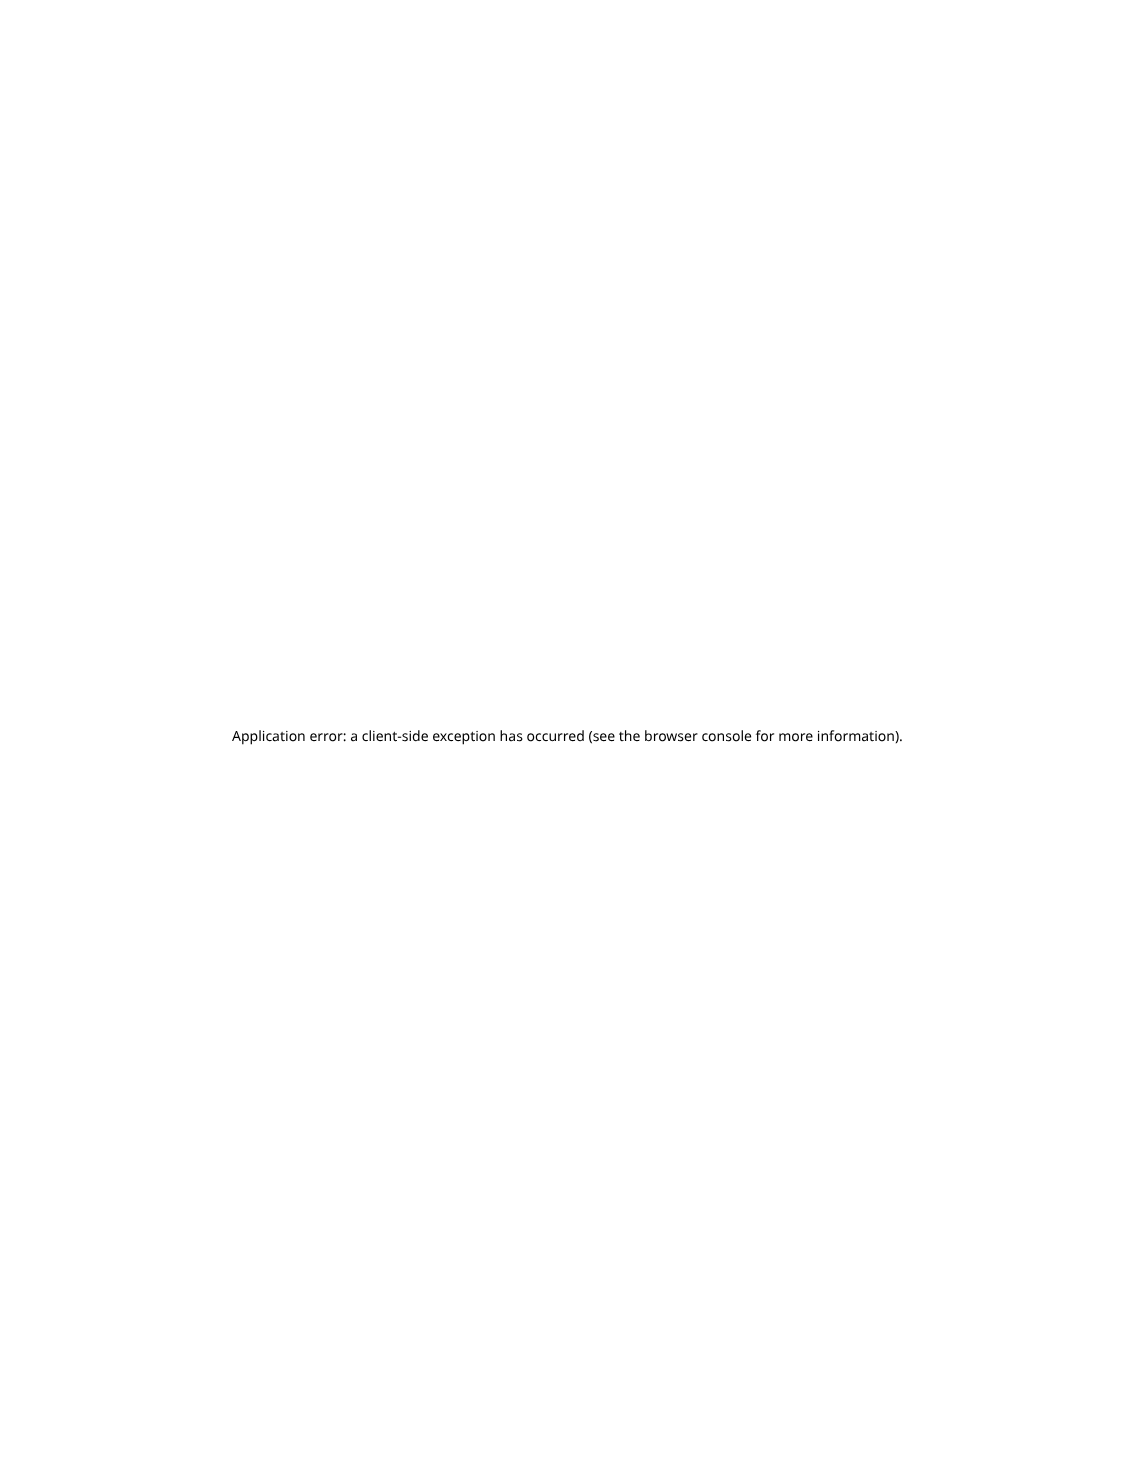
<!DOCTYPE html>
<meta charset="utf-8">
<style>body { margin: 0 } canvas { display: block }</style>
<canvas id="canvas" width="1135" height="1471"></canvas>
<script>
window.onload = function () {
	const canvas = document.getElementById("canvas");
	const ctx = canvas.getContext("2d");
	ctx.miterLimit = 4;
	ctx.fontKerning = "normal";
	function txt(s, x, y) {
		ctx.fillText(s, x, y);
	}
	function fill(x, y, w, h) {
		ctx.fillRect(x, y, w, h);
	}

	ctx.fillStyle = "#FFFFFF";
	fill(0, 0, 1135, 1471);
	ctx.font = "14px Noto Sans";
	ctx.fillStyle = "#000000";
	txt("Application error: a client-side exception has occurred (see the browser console for more information).", 232, 741);
};
</script>
